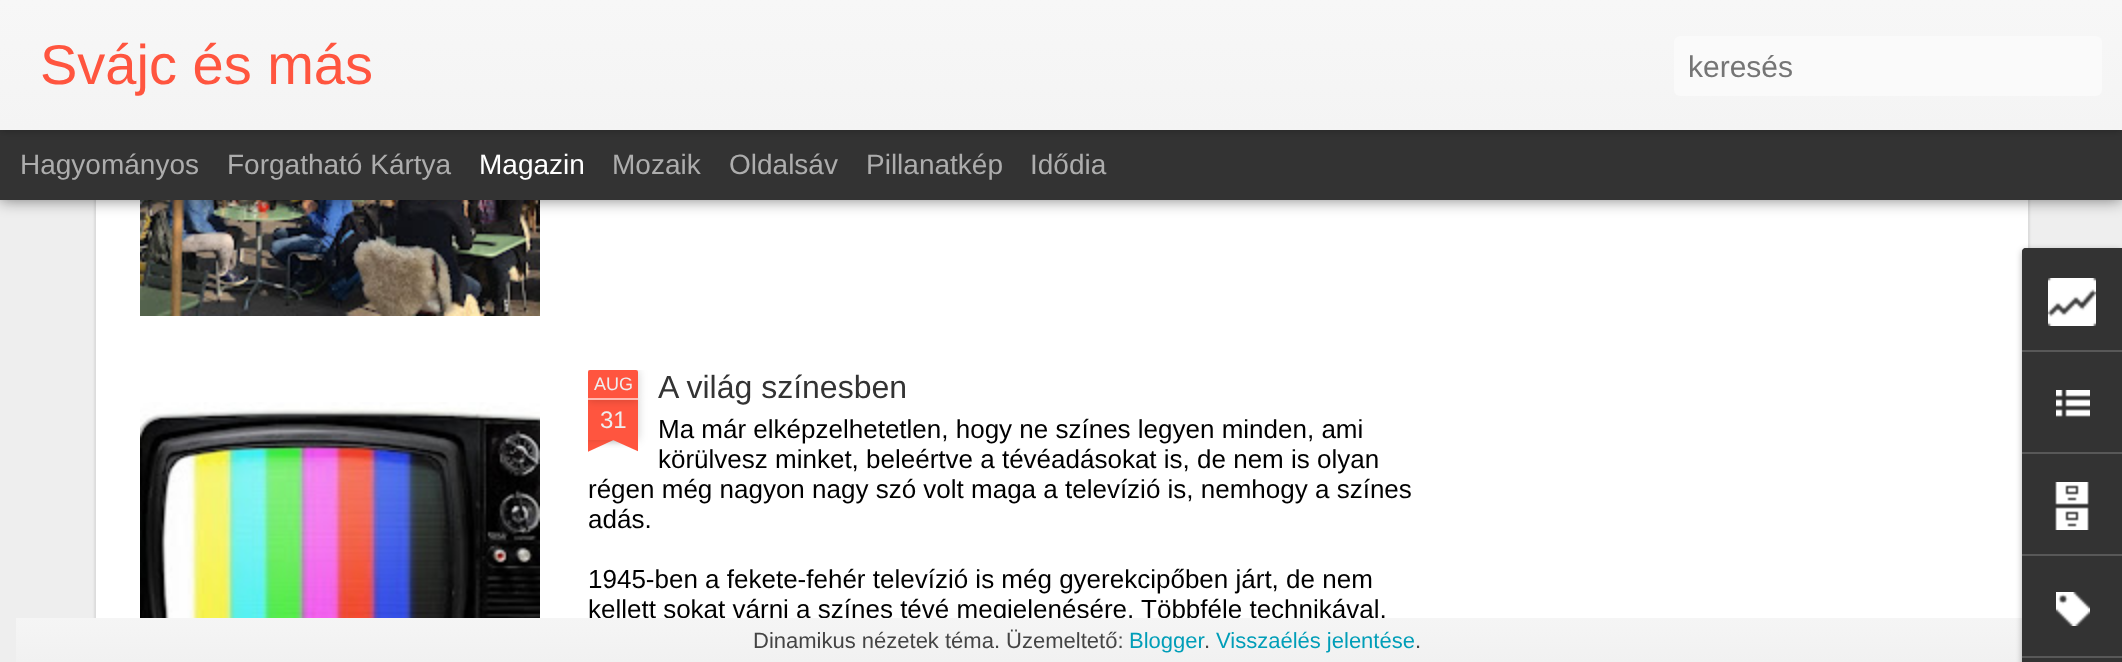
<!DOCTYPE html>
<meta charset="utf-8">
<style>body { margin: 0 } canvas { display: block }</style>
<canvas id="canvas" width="2122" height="662"></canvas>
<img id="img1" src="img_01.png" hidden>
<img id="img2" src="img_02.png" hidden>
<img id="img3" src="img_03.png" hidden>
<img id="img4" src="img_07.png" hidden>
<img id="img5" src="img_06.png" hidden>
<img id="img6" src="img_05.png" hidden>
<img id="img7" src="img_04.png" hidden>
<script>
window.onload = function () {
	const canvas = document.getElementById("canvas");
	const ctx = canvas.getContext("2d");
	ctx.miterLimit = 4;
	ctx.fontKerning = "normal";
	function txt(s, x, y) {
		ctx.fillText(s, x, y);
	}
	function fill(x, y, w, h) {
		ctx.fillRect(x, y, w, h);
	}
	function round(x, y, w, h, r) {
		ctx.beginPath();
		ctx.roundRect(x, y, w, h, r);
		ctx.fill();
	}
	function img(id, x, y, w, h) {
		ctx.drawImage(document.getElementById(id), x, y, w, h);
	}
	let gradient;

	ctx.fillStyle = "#EEEEEE";
	fill(0, 0, 2122, 662);
	ctx.fillStyle = "#FFFFFF";
	fill(92, 200, 1940, 418);
	img("img1", 92, 200, 1940, 418);
	img("img2", 140, 200, 400, 116);
	ctx.fillStyle = "rgba(0, 0, 0, 0.5)";
	ctx.filter = "blur(8px)";
	ctx.beginPath();
	ctx.rect(0, 130, 2122, 70);
	ctx.fill();
	ctx.filter = "none";
	ctx.fillStyle = "#333333";
	fill(0, 130, 2122, 70);
	ctx.fillStyle = "rgba(0, 0, 0, 0.3)";
	ctx.filter = "blur(5px)";
	ctx.beginPath();
	ctx.rect(0, 0, 2122, 130);
	ctx.fill();
	ctx.filter = "none";
	gradient = ctx.createLinearGradient(0, 0, 0, 130);
	gradient.addColorStop(0, "#F7F7F7");
	gradient.addColorStop(1, "#F4F4F4");
	ctx.fillStyle = gradient;
	fill(0, 0, 2122, 130);
	ctx.fillStyle = "#FAFAFA";
	round(1674, 36, 428, 60, 6);
	img("img3", 140, 402, 400, 216);
	ctx.save();
	ctx.beginPath();
	ctx.rect(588, 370, 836, 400);
	ctx.clip();
	ctx.fillStyle = "rgba(0, 0, 0, 0.2)";
	ctx.filter = "blur(5px)";
	ctx.beginPath();
	ctx.rect(588, 400, 50, 40);
	ctx.fill();
	ctx.filter = "none";
	ctx.restore();
	ctx.fillStyle = "#FF553F";
	fill(588, 400, 50, 40);
	ctx.save();
	ctx.beginPath();
	ctx.rect(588, 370, 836, 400);
	ctx.clip();
	ctx.fillStyle = "rgba(0, 0, 0, 0.2)";
	ctx.filter = "blur(5px)";
	ctx.beginPath();
	ctx.roundRect(588, 370, 50, 30, 2);
	ctx.fill();
	ctx.filter = "none";
	ctx.restore();
	ctx.beginPath();
	ctx.roundRect(588, 370, 50, 30, [2, 2, 0, 0]);
	ctx.fill();
	ctx.fillStyle = "#FFBBB2";
	fill(588, 398, 50, 2);
	ctx.save();
	ctx.beginPath();
	ctx.rect(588, 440, 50, 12);
	ctx.clip();
	ctx.fillStyle = "rgba(0, 0, 0, 0.2)";
	ctx.filter = "blur(5px)";
	ctx.beginPath();
	ctx.rect(576, 426, 80, 12);
	ctx.fill();
	ctx.filter = "none";
	ctx.restore();
	ctx.save();
	ctx.beginPath();
	ctx.rect(588, 440, 50, 12);
	ctx.clip();
	ctx.fillStyle = "#FF553F";
	ctx.beginPath();
	ctx.moveTo(577, 443);
	ctx.lineTo(650, 410);
	ctx.lineTo(655, 421);
	ctx.lineTo(583, 454);
	ctx.closePath();
	ctx.fill();
	ctx.restore();
	ctx.save();
	ctx.beginPath();
	ctx.rect(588, 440, 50, 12);
	ctx.clip();
	ctx.fillStyle = "rgba(0, 0, 0, 0.2)";
	ctx.filter = "blur(5px)";
	ctx.beginPath();
	ctx.rect(570, 426, 80, 12);
	ctx.fill();
	ctx.filter = "none";
	ctx.restore();
	ctx.save();
	ctx.beginPath();
	ctx.rect(588, 440, 50, 12);
	ctx.clip();
	ctx.fillStyle = "#FF553F";
	ctx.beginPath();
	ctx.moveTo(577, 410);
	ctx.lineTo(649, 443);
	ctx.lineTo(644, 454);
	ctx.lineTo(571, 421);
	ctx.closePath();
	ctx.fill();
	ctx.restore();
	ctx.font = "56px Liberation Sans";
	ctx.fillStyle = "#FF553F";
	txt("Svájc és más", 40, 84);
	ctx.font = "30px Liberation Sans";
	ctx.fillStyle = "#757575";
	txt("keresés", 1688, 77);
	ctx.font = "28px Liberation Sans";
	ctx.fillStyle = "#ADADAD";
	txt("Hagyományos", 20, 174);
	txt("Forgatható Kártya", 227, 174);
	ctx.fillStyle = "#FFFFFF";
	txt("Magazin", 479, 174);
	ctx.fillStyle = "#ADADAD";
	txt("Mozaik", 612, 174);
	txt("Oldalsáv", 729, 174);
	txt("Pillanatkép", 866, 174);
	txt("Idődia", 1030, 174);
	ctx.font = "18px Liberation Sans";
	ctx.fillStyle = "#EEEEEE";
	txt("AUG", 594, 390);
	ctx.font = "24px Liberation Sans";
	txt("31", 600, 428);
	ctx.font = "32px Liberation Sans";
	ctx.fillStyle = "#333333";
	txt("A világ színesben", 658, 398);
	ctx.font = "26px Liberation Sans";
	ctx.fillStyle = "#000000";
	txt("Ma már elképzelhetetlen, hogy ne színes legyen minden, ami", 658, 438);
	txt("körülvesz minket, beleértve a tévéadásokat is, de nem is olyan", 658, 468);
	txt("régen még nagyon nagy szó volt maga a televízió is, nemhogy a színes", 588, 498);
	txt("adás.", 588, 528);
	txt("1945-ben a fekete-fehér televízió is még gyerekcipőben járt, de nem", 588, 588);
	txt("kellett sokat várni a színes tévé megjelenésére. Többféle technikával,", 588, 618);
	gradient = ctx.createLinearGradient(1087, 618, 1087, 662);
	gradient.addColorStop(0, "#F5F5F5");
	gradient.addColorStop(1, "#F1F1F1");
	ctx.fillStyle = gradient;
	fill(16, 618, 2006, 44);
	ctx.fillStyle = "rgba(0, 0, 0, 0.3)";
	ctx.filter = "blur(3px)";
	ctx.beginPath();
	ctx.roundRect(2022, 250, 100, 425, 4);
	ctx.fill();
	ctx.filter = "none";
	ctx.fillStyle = "#333333";
	ctx.beginPath();
	ctx.moveTo(2026, 248);
	ctx.lineTo(2122, 248);
	ctx.lineTo(2122, 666);
	ctx.lineTo(2026, 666);
	ctx.bezierCurveTo(2024, 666, 2022, 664, 2022, 662);
	ctx.lineTo(2022, 252);
	ctx.bezierCurveTo(2022, 250, 2024, 248, 2026, 248);
	ctx.closePath();
	ctx.fill();
	ctx.fillStyle = "#585858";
	fill(2022, 656, 100, 2);
	img("img4", 2056, 592, 34, 34);
	fill(2022, 554, 100, 2);
	img("img5", 2055, 482, 34, 48);
	fill(2022, 452, 100, 2);
	img("img6", 2056, 390, 34, 27);
	fill(2022, 350, 100, 2);
	ctx.fillStyle = "#333333";
	ctx.beginPath();
	ctx.roundRect(2022, 248, 100, 102, [4, 0, 0, 0]);
	ctx.fill();
	img("img7", 2048, 278, 48, 48);
	ctx.font = "22px Liberation Sans";
	ctx.fillStyle = "#444444";
	txt("Dinamikus nézetek téma. Üzemeltető:", 753, 648);
	ctx.fillStyle = "#009EB8";
	txt("Blogger", 1129, 648);
	ctx.fillStyle = "#444444";
	txt(".", 1204, 648);
	ctx.fillStyle = "#009EB8";
	txt("Visszaélés jelentése", 1216, 648);
	ctx.fillStyle = "#444444";
	txt(".", 1415, 648);
};
</script>
